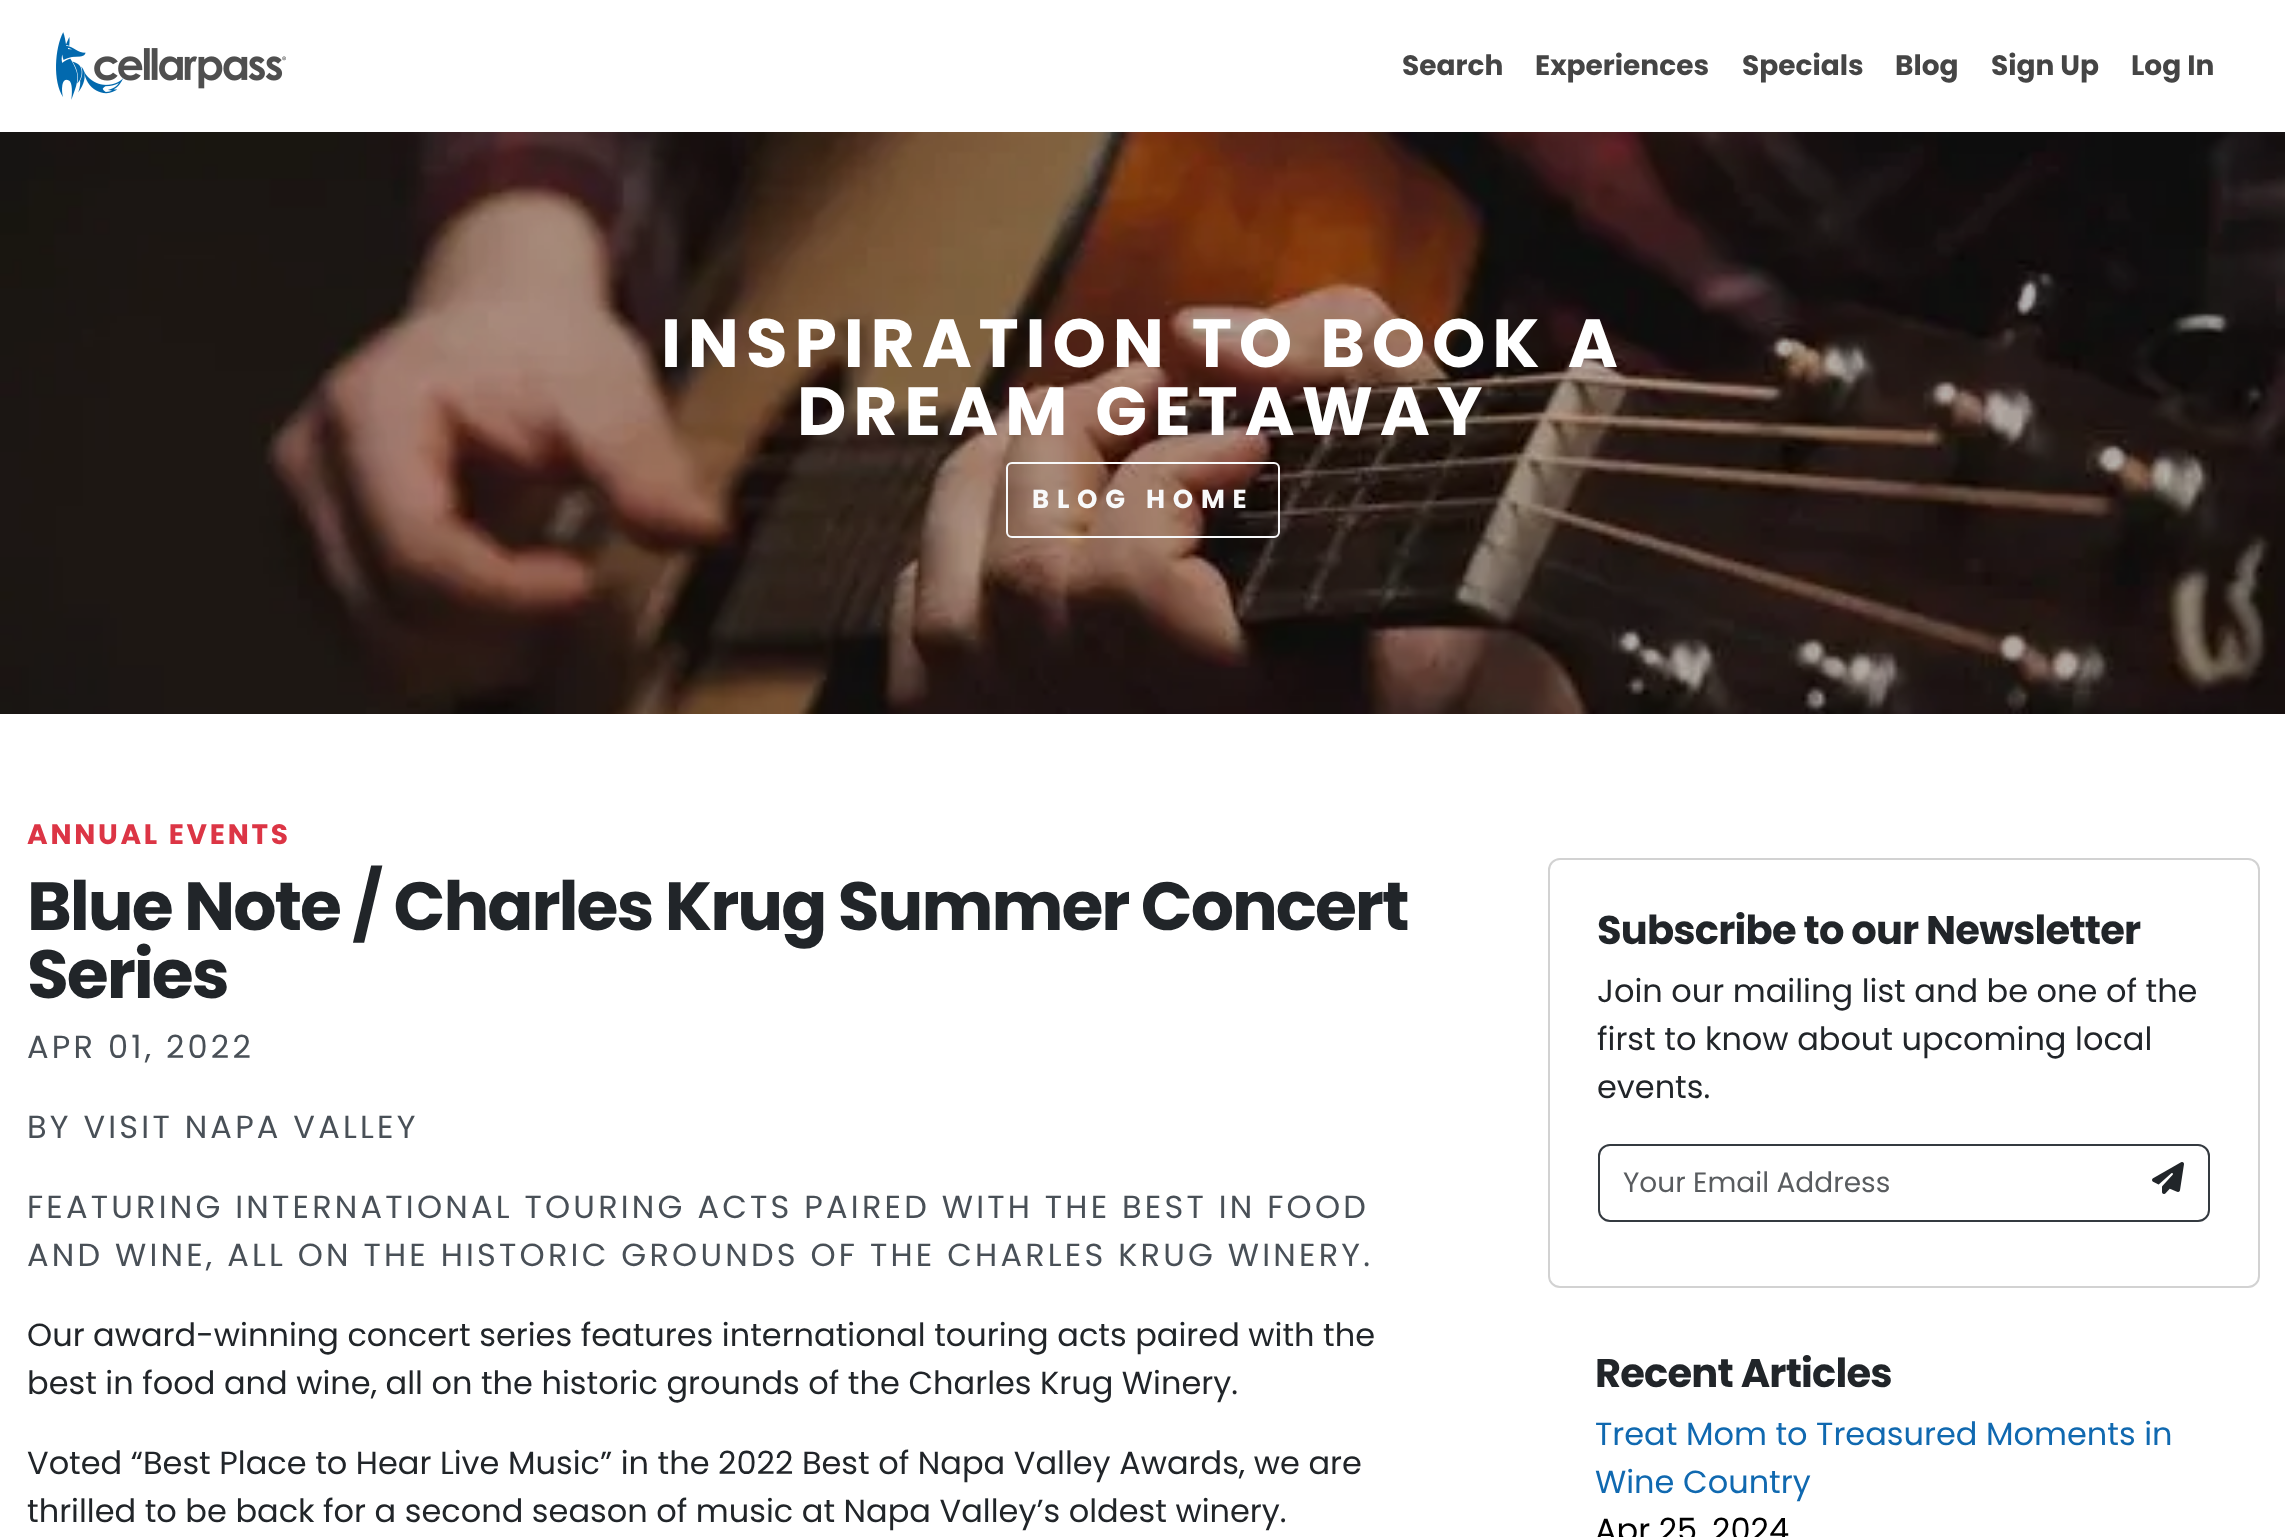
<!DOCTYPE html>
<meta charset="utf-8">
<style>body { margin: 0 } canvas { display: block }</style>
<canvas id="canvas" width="2285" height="1537"></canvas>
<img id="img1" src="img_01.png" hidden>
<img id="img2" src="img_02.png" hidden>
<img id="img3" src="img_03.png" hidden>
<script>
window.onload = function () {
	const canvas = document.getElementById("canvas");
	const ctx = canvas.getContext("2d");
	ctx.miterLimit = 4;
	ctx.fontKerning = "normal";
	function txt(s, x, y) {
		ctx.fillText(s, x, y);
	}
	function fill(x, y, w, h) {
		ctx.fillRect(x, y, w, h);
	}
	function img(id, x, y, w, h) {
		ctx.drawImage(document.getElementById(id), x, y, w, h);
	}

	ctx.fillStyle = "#FFFFFF";
	fill(0, 0, 2285, 1537);
	img("img1", 56, 32, 230, 68);
	img("img2", 0, 132, 2285, 582);
	ctx.beginPath();
	ctx.roundRect(1007, 463, 272, 74, 5);
	ctx.strokeStyle = "#F8F9FA";
	ctx.lineWidth = 2;
	ctx.stroke();
	ctx.beginPath();
	ctx.roundRect(1549, 859, 710, 428, 11);
	ctx.strokeStyle = "#D2D2D2";
	ctx.stroke();
	ctx.beginPath();
	ctx.roundRect(1599, 1145, 610, 76, 11);
	ctx.strokeStyle = "#343A40";
	ctx.stroke();
	img("img3", 2152, 1162, 32, 32);
	ctx.font = "bold 28px Poppins";
	ctx.fillStyle = "#454545";
	txt("Search", 1402, 75);
	txt("Experiences", 1535, 75);
	txt("Specials", 1742, 75);
	txt("Blog", 1895, 75);
	txt("Sign Up", 1991, 75);
	txt("Log In", 2131, 75);
	ctx.letterSpacing = "6.8px";
	ctx.font = "bold 68px Poppins";
	ctx.fillStyle = "#FFFFFF";
	txt("INSPIRATION TO BOOK A", 661, 367);
	txt("DREAM GETAWAY", 797, 435);
	ctx.letterSpacing = "7.75px";
	ctx.font = "bold 26px Poppins";
	ctx.fillStyle = "#F8F9FA";
	txt("BLOG HOME", 1032, 508);
	ctx.letterSpacing = "2.75px";
	ctx.font = "bold 28px Poppins";
	ctx.fillStyle = "#DC3545";
	txt("ANNUAL EVENTS", 27, 844);
	ctx.letterSpacing = "-2px";
	ctx.font = "bold 68px Poppins";
	ctx.fillStyle = "#212529";
	txt("Blue Note / Charles Krug Summer Concert", 27, 930);
	txt("Series", 27, 998);
	ctx.letterSpacing = "3.2px";
	ctx.font = "32px Poppins";
	ctx.fillStyle = "#495057";
	txt("APR 01, 2022", 27, 1058);
	txt("BY VISIT NAPA VALLEY", 27, 1138);
	txt("FEATURING INTERNATIONAL TOURING ACTS PAIRED WITH THE BEST IN FOOD", 27, 1218);
	txt("AND WINE, ALL ON THE HISTORIC GROUNDS OF THE CHARLES KRUG WINERY.", 27, 1266);
	ctx.letterSpacing = "0px";
	ctx.fillStyle = "#212529";
	txt("Our award-winning concert series features international touring acts paired with the", 27, 1346);
	txt("best in food and wine, all on the historic grounds of the Charles Krug Winery.", 27, 1394);
	txt("Voted “Best Place to Hear Live Music” in the 2022 Best of Napa Valley Awards, we are", 27, 1474);
	txt("thrilled to be back for a second season of music at Napa Valley’s oldest winery.", 27, 1522);
	ctx.letterSpacing = "-0.8px";
	ctx.font = "bold 40px Poppins";
	txt("Subscribe to our Newsletter", 1597, 944);
	ctx.letterSpacing = "0px";
	ctx.font = "32px Poppins";
	txt("Join our mailing list and be one of the", 1597, 1002);
	txt("first to know about upcoming local", 1597, 1050);
	txt("events.", 1597, 1098);
	ctx.font = "28px Poppins";
	ctx.fillStyle = "#595C5F";
	txt("Your Email Address", 1623, 1192);
	ctx.letterSpacing = "-0.8px";
	ctx.font = "bold 40px Poppins";
	ctx.fillStyle = "#212529";
	txt("Recent Articles", 1595, 1387);
	ctx.letterSpacing = "0px";
	ctx.font = "32px Poppins";
	ctx.fillStyle = "#1069B0";
	txt("Treat Mom to Treasured Moments in", 1595, 1445);
	txt("Wine Country", 1595, 1493);
	ctx.fillStyle = "#000000";
	txt("Apr 25, 2024", 1595, 1541);
};
</script>
